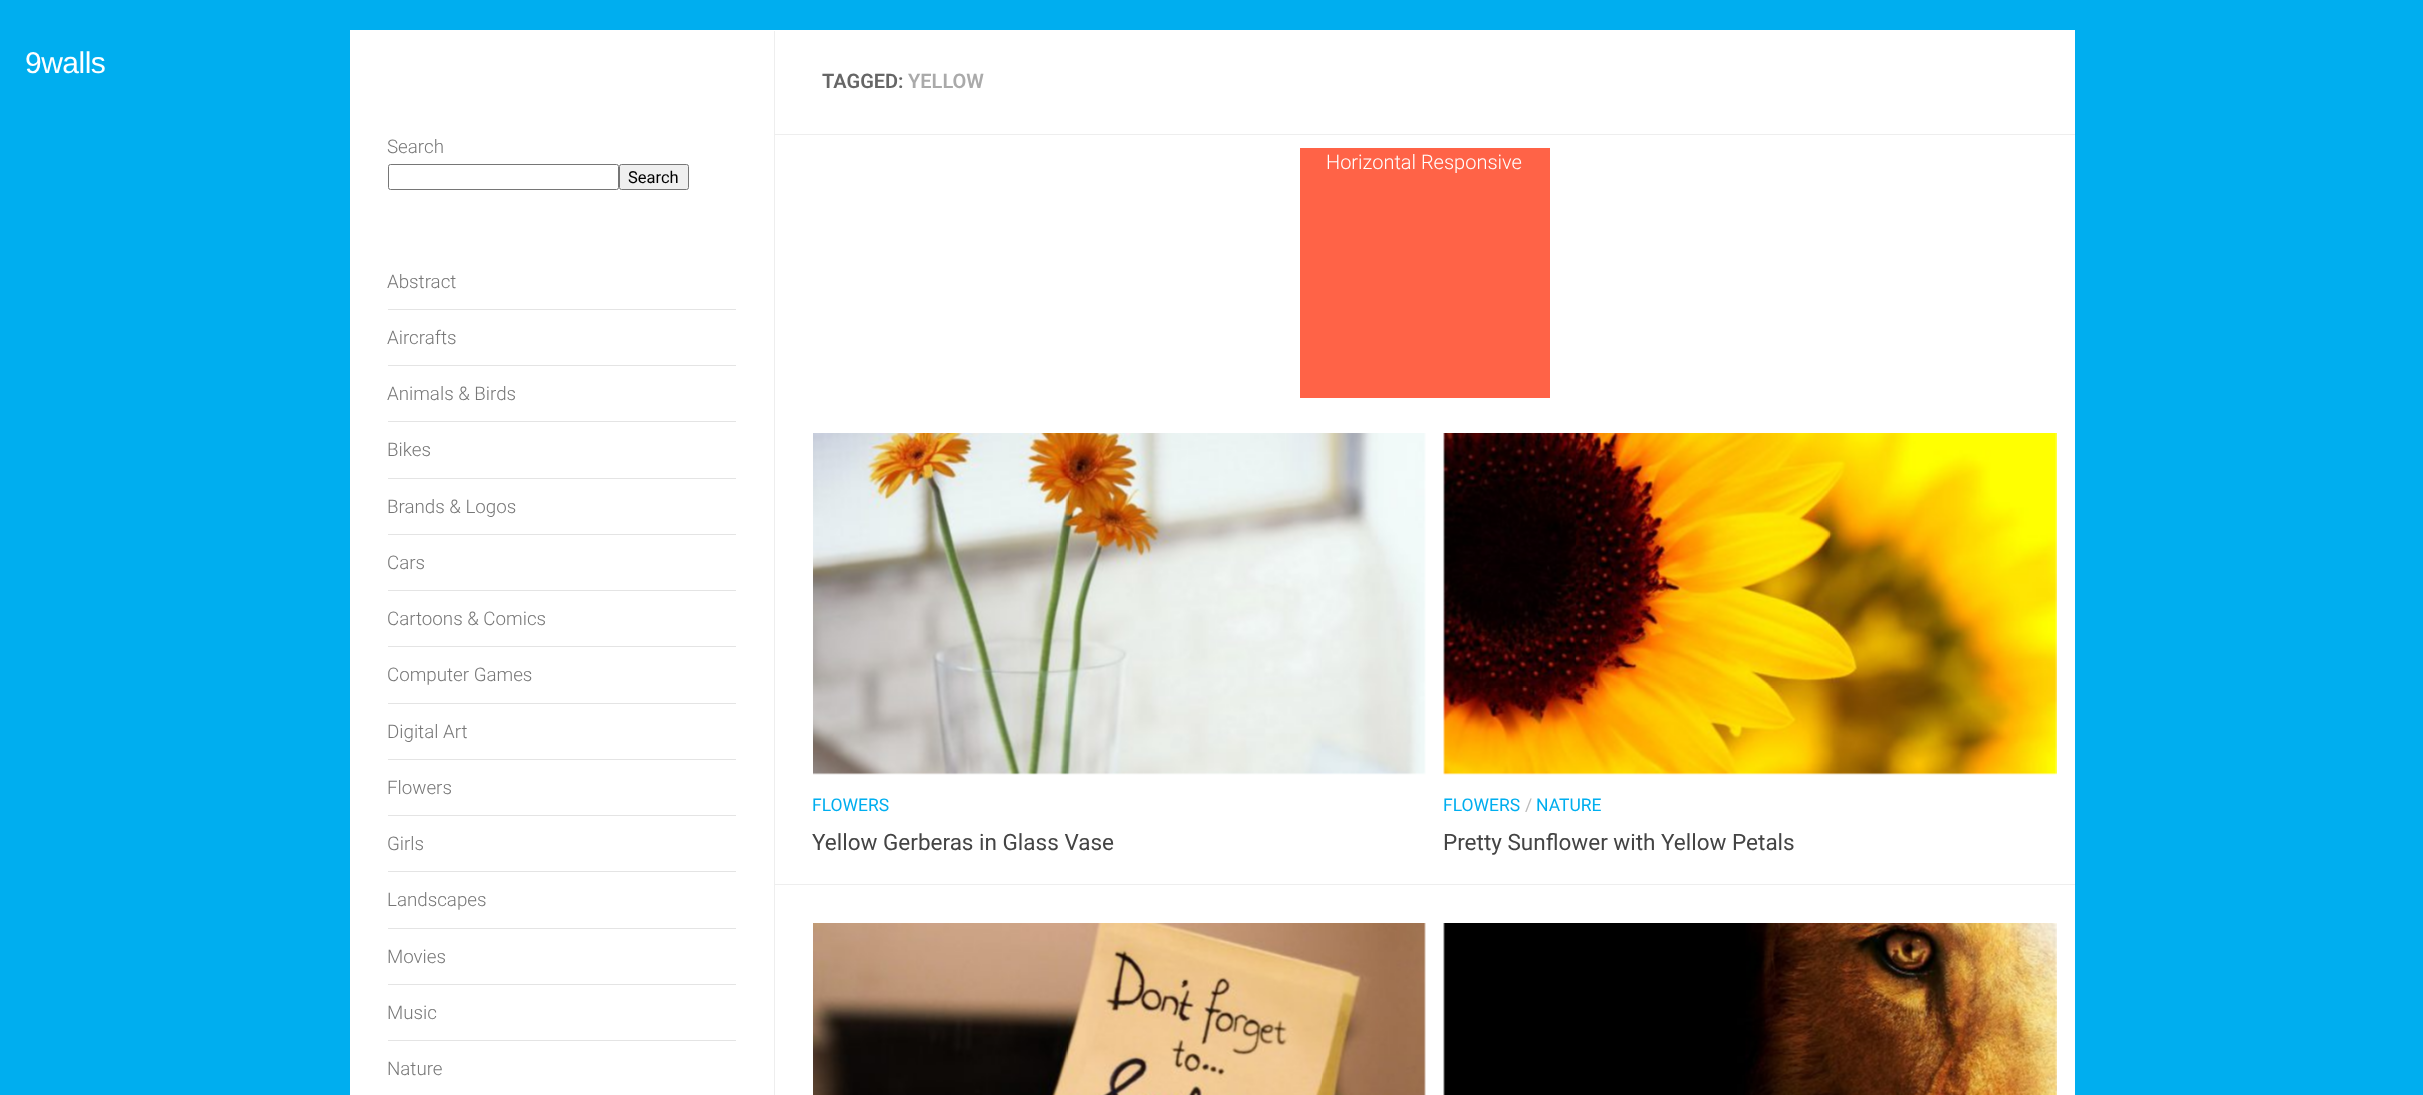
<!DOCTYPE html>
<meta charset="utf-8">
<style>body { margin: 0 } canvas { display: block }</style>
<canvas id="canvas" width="2423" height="1095"></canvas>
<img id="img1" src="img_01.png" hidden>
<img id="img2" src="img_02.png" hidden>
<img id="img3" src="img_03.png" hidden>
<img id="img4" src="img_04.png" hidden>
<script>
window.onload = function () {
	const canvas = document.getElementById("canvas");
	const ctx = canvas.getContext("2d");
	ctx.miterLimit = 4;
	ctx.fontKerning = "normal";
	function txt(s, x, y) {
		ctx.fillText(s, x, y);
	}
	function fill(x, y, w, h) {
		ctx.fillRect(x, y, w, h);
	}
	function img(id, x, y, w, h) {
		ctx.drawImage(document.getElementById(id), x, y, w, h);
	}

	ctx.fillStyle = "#00AEEF";
	fill(0, 0, 2423, 1095);
	ctx.fillStyle = "#FFFFFF";
	fill(350, 30, 1725, 1065);
	ctx.beginPath();
	ctx.roundRect(388.5, 164.5, 230, 25, 2);
	ctx.strokeStyle = "#767676";
	ctx.stroke();
	ctx.fillStyle = "#EFEFEF";
	ctx.beginPath();
	ctx.roundRect(619.5, 164.5, 69, 25, 2);
	ctx.fill();
	ctx.stroke();
	ctx.fillStyle = "#E4E4E4";
	fill(388, 309, 348, 1);
	fill(388, 365, 348, 1);
	fill(388, 421, 348, 1);
	fill(388, 478, 348, 1);
	fill(388, 534, 348, 1);
	fill(388, 590, 348, 1);
	fill(388, 646, 348, 1);
	fill(388, 703, 348, 1);
	fill(388, 759, 348, 1);
	fill(388, 815, 348, 1);
	fill(388, 871, 348, 1);
	fill(388, 928, 348, 1);
	fill(388, 984, 348, 1);
	fill(388, 1040, 348, 1);
	ctx.fillStyle = "#EEEEEE";
	fill(774, 31, 1, 1064);
	fill(775, 134, 1300, 1);
	ctx.fillStyle = "#FF6347";
	fill(1300, 148, 250, 250);
	ctx.fillStyle = "#EEEEEE";
	fill(775, 884, 1300, 1);
	img("img1", 813, 433, 613, 342);
	img("img2", 1443, 433, 614, 342);
	img("img3", 813, 923, 613, 172);
	img("img4", 1443, 923, 614, 172);
	ctx.letterSpacing = "-0.5px";
	ctx.font = "30px Liberation Sans";
	ctx.fillStyle = "#FFFFFF";
	txt("9walls", 25, 73);
	ctx.letterSpacing = "0px";
	ctx.font = "300 18.75px Roboto";
	ctx.fillStyle = "#777777";
	txt("Search", 387, 153);
	ctx.font = "16.5px Roboto";
	ctx.fillStyle = "#000000";
	txt("Search", 628, 183);
	ctx.font = "300 18.75px Roboto";
	ctx.fillStyle = "#777777";
	txt("Abstract", 387, 288);
	txt("Aircrafts", 387, 344);
	txt("Animals & Birds", 387, 400);
	txt("Bikes", 387, 456);
	txt("Brands & Logos", 387, 513);
	txt("Cars", 387, 569);
	txt("Cartoons & Comics", 387, 625);
	txt("Computer Games", 387, 681);
	txt("Digital Art", 387, 738);
	txt("Flowers", 387, 794);
	txt("Girls", 387, 850);
	txt("Landscapes", 387, 906);
	txt("Movies", 387, 963);
	txt("Music", 387, 1019);
	txt("Nature", 387, 1075);
	ctx.font = "600 20px Roboto";
	ctx.fillStyle = "#666666";
	txt("TAGGED:", 822, 88);
	ctx.fillStyle = "#AAAAAA";
	txt("YELLOW", 908, 88);
	ctx.font = "300 20px Roboto";
	ctx.fillStyle = "#FFFFFF";
	txt("Horizontal Responsive", 1326, 169);
	ctx.font = "17.5px Roboto";
	ctx.fillStyle = "#00AEEF";
	txt("FLOWERS", 812, 811);
	ctx.font = "22.5px Roboto";
	ctx.fillStyle = "#444444";
	txt("Yellow Gerberas in Glass Vase", 812, 850);
	ctx.font = "17.5px Roboto";
	ctx.fillStyle = "#00AEEF";
	txt("FLOWERS", 1443, 811);
	ctx.fillStyle = "#BBBBBB";
	txt("/", 1525, 811);
	ctx.fillStyle = "#00AEEF";
	txt("NATURE", 1536, 811);
	ctx.font = "22.5px Roboto";
	ctx.fillStyle = "#444444";
	txt("Pretty Sunflower with Yellow Petals", 1443, 850);
};
</script>
